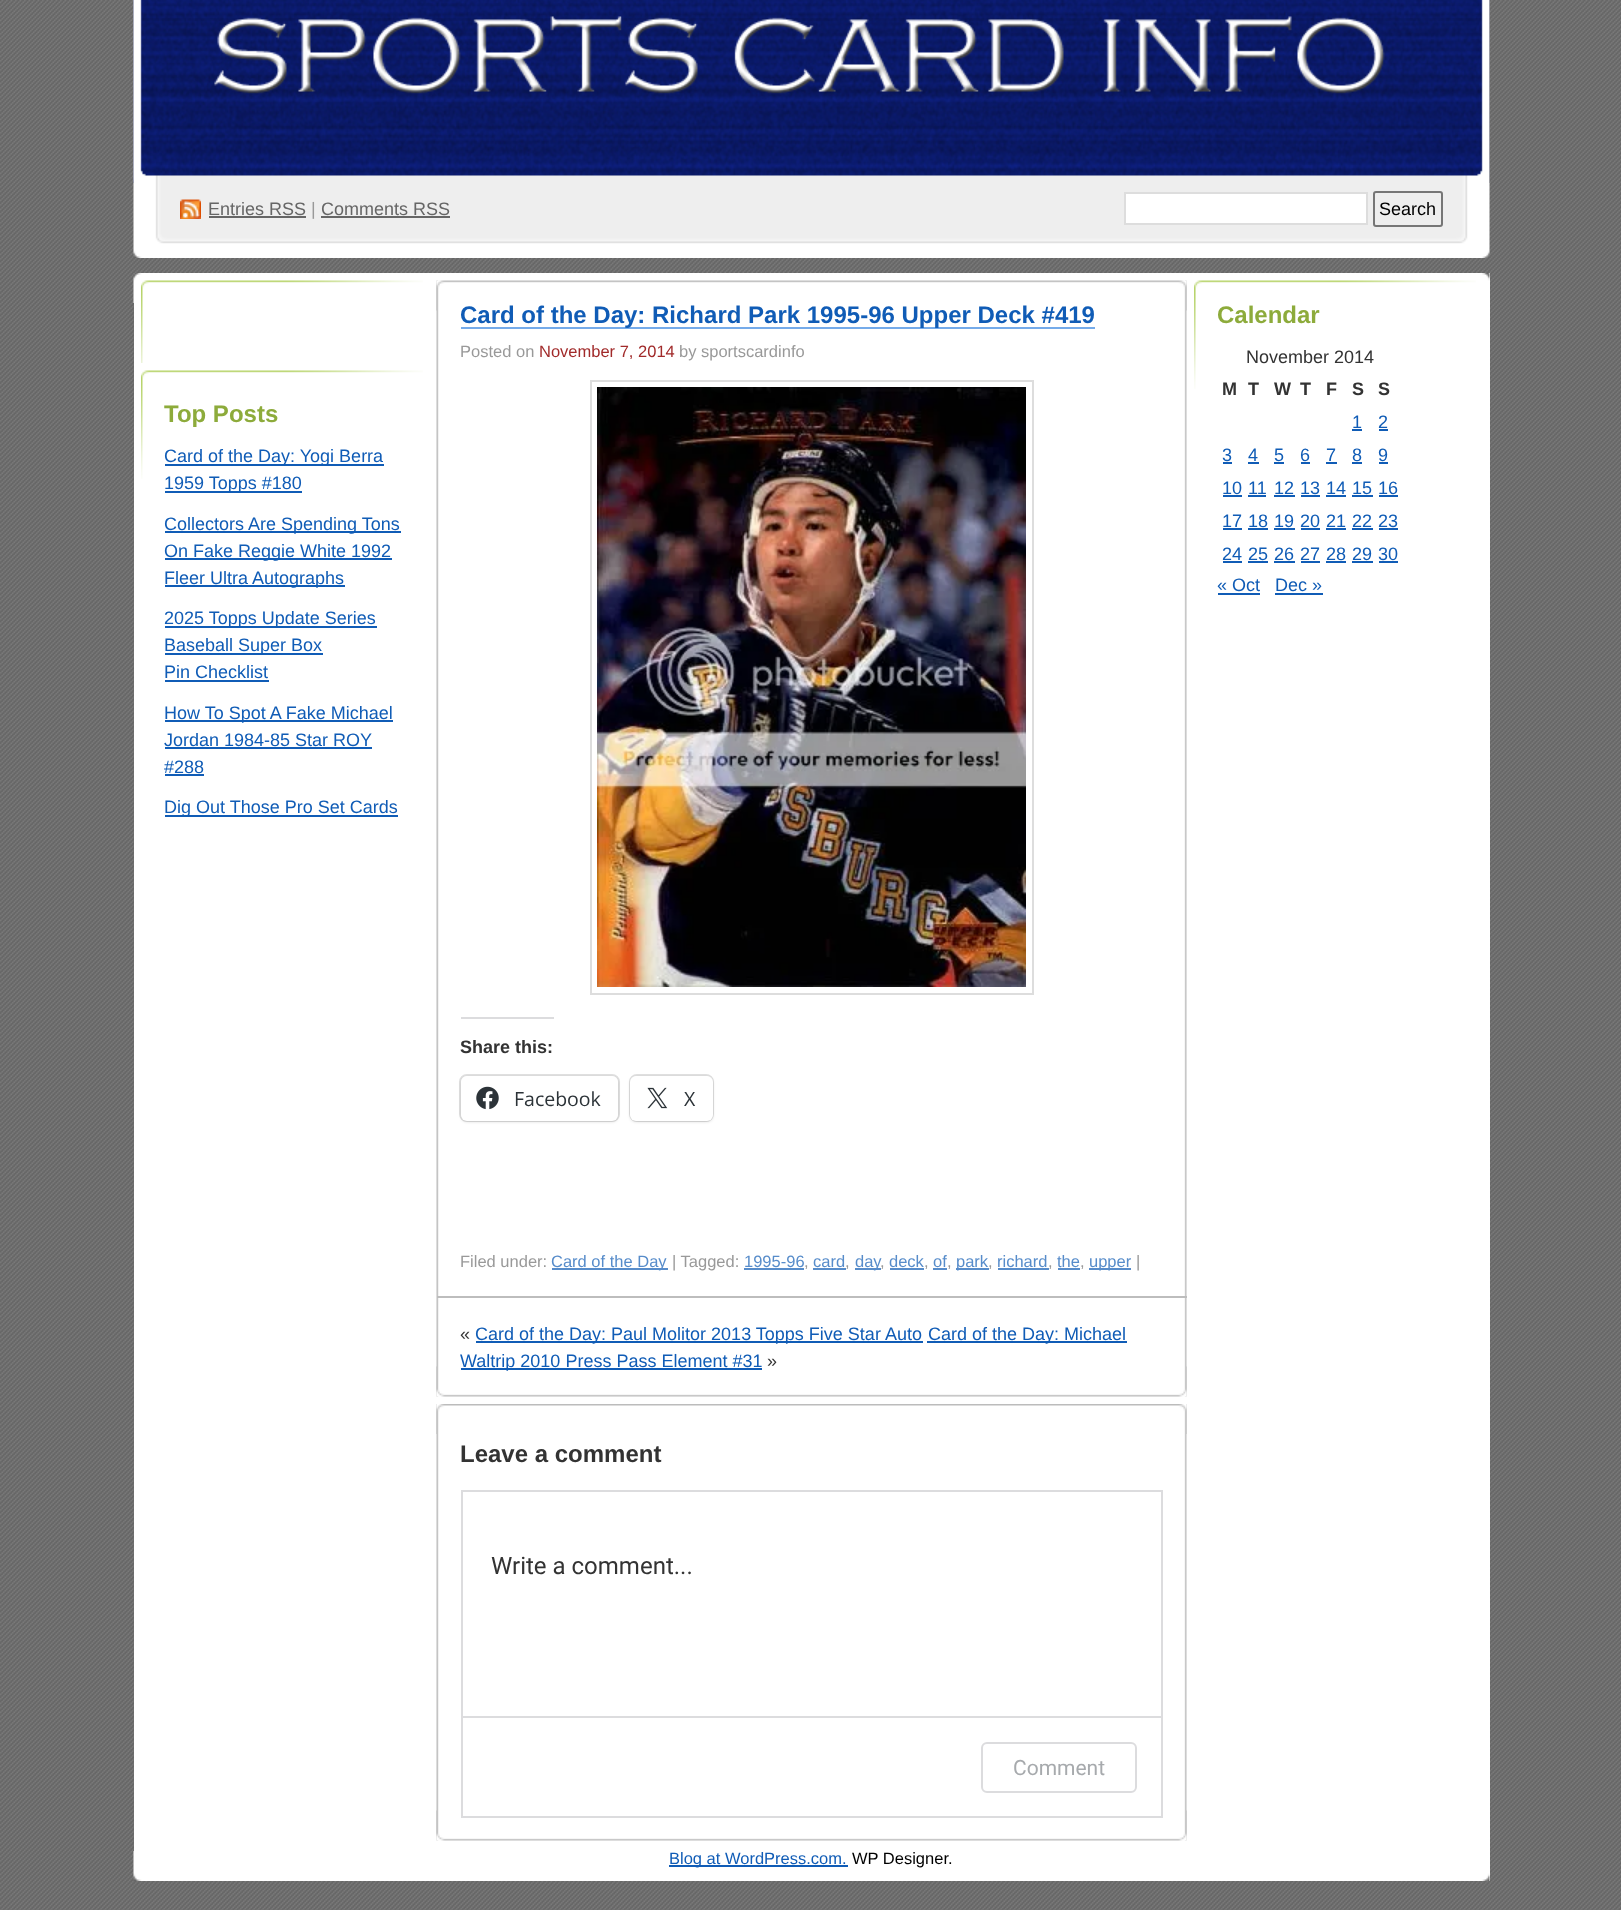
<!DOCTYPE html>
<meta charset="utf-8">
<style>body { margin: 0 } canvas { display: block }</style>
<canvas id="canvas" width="1621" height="1910"></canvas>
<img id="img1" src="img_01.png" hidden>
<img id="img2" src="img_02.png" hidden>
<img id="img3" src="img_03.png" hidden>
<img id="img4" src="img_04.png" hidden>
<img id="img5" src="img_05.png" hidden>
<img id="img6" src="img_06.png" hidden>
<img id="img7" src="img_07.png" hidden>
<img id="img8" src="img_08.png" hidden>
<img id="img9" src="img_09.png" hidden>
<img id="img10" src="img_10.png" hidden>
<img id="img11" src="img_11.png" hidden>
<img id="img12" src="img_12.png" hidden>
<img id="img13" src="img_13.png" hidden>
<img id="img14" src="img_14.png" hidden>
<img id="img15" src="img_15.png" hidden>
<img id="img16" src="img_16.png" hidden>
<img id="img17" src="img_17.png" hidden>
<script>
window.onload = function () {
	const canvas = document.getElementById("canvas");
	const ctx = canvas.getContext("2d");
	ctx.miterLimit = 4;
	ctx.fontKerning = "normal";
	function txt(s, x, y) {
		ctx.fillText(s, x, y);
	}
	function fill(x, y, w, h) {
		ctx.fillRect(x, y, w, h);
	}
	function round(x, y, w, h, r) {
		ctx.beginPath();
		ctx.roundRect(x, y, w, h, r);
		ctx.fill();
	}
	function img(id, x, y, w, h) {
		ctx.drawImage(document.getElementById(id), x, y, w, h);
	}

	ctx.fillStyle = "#FFFFFF";
	fill(0, 0, 1621, 1910);
	img("img1", 0, 0, 1621, 1910);
	img("img2", 133, 0, 1357, 183);
	img("img3", 133, 0, 1357, 258);
	img("img4", 180, 199, 21, 20);
	ctx.fillStyle = "#666666";
	fill(209, 216, 97, 2);
	fill(321, 216, 129, 2);
	ctx.fillStyle = "#FFFFFF";
	ctx.beginPath();
	ctx.rect(1125, 193, 242, 31);
	ctx.fill();
	ctx.strokeStyle = "#DDDDDD";
	ctx.lineWidth = 2;
	ctx.stroke();
	ctx.beginPath();
	ctx.roundRect(1374, 192, 68, 34, 2);
	ctx.strokeStyle = "#767676";
	ctx.stroke();
	fill(134, 273, 1356, 1608);
	img("img5", 133, 1851, 1357, 30);
	img("img6", 133, 273, 1357, 30);
	img("img7", 141, 280, 282, 83);
	img("img8", 141, 370, 282, 109);
	ctx.fillStyle = "#105CB6";
	fill(165, 464, 219, 2);
	fill(165, 491, 137, 2);
	fill(165, 531, 236, 2);
	fill(165, 558, 227, 2);
	fill(165, 585, 180, 2);
	fill(165, 626, 212, 2);
	fill(165, 653, 158, 2);
	fill(165, 680, 104, 2);
	fill(165, 720, 228, 2);
	fill(165, 747, 207, 2);
	fill(165, 774, 39, 2);
	fill(165, 815, 233, 2);
	img("img9", 436, 280, 751, 1117);
	img("img10", 436, 1366, 751, 31);
	img("img11", 436, 280, 751, 31);
	ctx.fillStyle = "#75ABEA";
	fill(461, 327, 634, 2);
	ctx.strokeStyle = "#DDDDDD";
	ctx.strokeRect(591, 381, 442, 613);
	img("img12", 597, 387, 429, 600);
	ctx.fillStyle = "#DCDCDE";
	fill(461, 1017, 93, 2);
	ctx.beginPath();
	ctx.roundRect(460, 1075, 159, 46, 7);
	ctx.strokeStyle = "#E0E0E0";
	ctx.stroke();
	ctx.fillStyle = "rgba(0, 0, 0, 0.12)";
	ctx.filter = "blur(1.5px)";
	ctx.beginPath();
	ctx.roundRect(461, 1077, 157, 45, 6);
	ctx.fill();
	ctx.filter = "none";
	ctx.fillStyle = "#FFFFFF";
	round(461, 1076, 157, 45, 6);
	img("img13", 476, 1086, 23, 24);
	ctx.beginPath();
	ctx.roundRect(630, 1075, 83, 46, 7);
	ctx.stroke();
	ctx.fillStyle = "rgba(0, 0, 0, 0.12)";
	ctx.filter = "blur(1.5px)";
	ctx.beginPath();
	ctx.roundRect(630, 1077, 83, 45, 6);
	ctx.fill();
	ctx.filter = "none";
	ctx.fillStyle = "#FFFFFF";
	round(630, 1076, 83, 45, 6);
	img("img14", 647, 1087, 21, 22);
	ctx.fillStyle = "#578CCA";
	fill(552, 1268, 116, 2);
	fill(744, 1268, 60, 2);
	fill(813, 1268, 33, 2);
	fill(855, 1268, 26, 2);
	fill(890, 1268, 34, 2);
	fill(933, 1268, 14, 2);
	fill(956, 1268, 33, 2);
	fill(998, 1268, 51, 2);
	fill(1058, 1268, 22, 2);
	fill(1089, 1268, 42, 2);
	ctx.fillStyle = "#BDBDBD";
	fill(437, 1296, 750, 2);
	ctx.fillStyle = "#105CB6";
	fill(476, 1341, 447, 2);
	fill(927, 1341, 200, 2);
	fill(461, 1368, 301, 2);
	img("img15", 436, 1404, 751, 437);
	img("img10", 436, 1810, 751, 31);
	img("img16", 436, 1404, 751, 30);
	ctx.strokeStyle = "#DCDCDE";
	ctx.strokeRect(462, 1491, 700, 326);
	ctx.fillStyle = "#DCDCDE";
	fill(462, 1716, 699, 2);
	ctx.beginPath();
	ctx.roundRect(982, 1743, 154, 49, 5);
	ctx.stroke();
	img("img17", 1194, 280, 282, 109);
	ctx.fillStyle = "#105CB6";
	fill(1352, 429, 10, 2);
	fill(1379, 429, 9, 2);
	fill(1223, 462, 9, 2);
	fill(1248, 462, 11, 2);
	fill(1274, 462, 10, 2);
	fill(1301, 462, 9, 2);
	fill(1326, 462, 11, 2);
	fill(1352, 462, 10, 2);
	fill(1379, 462, 9, 2);
	fill(1223, 495, 19, 2);
	fill(1248, 495, 18, 2);
	fill(1274, 495, 21, 2);
	fill(1301, 495, 19, 2);
	fill(1326, 495, 20, 2);
	fill(1352, 495, 21, 2);
	fill(1379, 495, 19, 2);
	fill(1223, 528, 19, 2);
	fill(1248, 528, 20, 2);
	fill(1274, 528, 21, 2);
	fill(1301, 528, 19, 2);
	fill(1326, 528, 20, 2);
	fill(1352, 528, 21, 2);
	fill(1379, 528, 19, 2);
	fill(1223, 561, 19, 2);
	fill(1248, 561, 20, 2);
	fill(1274, 561, 21, 2);
	fill(1301, 561, 19, 2);
	fill(1326, 561, 20, 2);
	fill(1352, 561, 21, 2);
	fill(1379, 561, 19, 2);
	fill(1218, 593, 42, 2);
	fill(1275, 593, 48, 2);
	fill(669, 1865, 179, 2);
	ctx.font = "18px Liberation Sans";
	ctx.fillStyle = "#666666";
	txt("Entries RSS", 208, 215);
	ctx.fillStyle = "#999999";
	txt("|", 311, 215);
	ctx.fillStyle = "#666666";
	txt("Comments RSS", 321, 215);
	ctx.fillStyle = "#000000";
	txt("Search", 1379, 215);
	ctx.font = "bold 24px Liberation Sans";
	ctx.fillStyle = "#8DAB3B";
	txt("Top Posts", 164, 422);
	ctx.font = "18px Liberation Sans";
	ctx.fillStyle = "#105CB6";
	txt("Card of the Day: Yogi Berra", 164, 462);
	txt("1959 Topps #180", 164, 489);
	txt("Collectors Are Spending Tons", 164, 530);
	txt("On Fake Reggie White 1992", 164, 557);
	txt("Fleer Ultra Autographs", 164, 584);
	txt("2025 Topps Update Series", 164, 624);
	txt("Baseball Super Box", 164, 651);
	txt("Pin Checklist", 164, 678);
	txt("How To Spot A Fake Michael", 164, 719);
	txt("Jordan 1984-85 Star ROY", 164, 746);
	txt("#288", 164, 773);
	txt("Dig Out Those Pro Set Cards", 164, 813);
	ctx.font = "bold 24px Liberation Sans";
	txt("Card of the Day: Richard Park 1995-96 Upper Deck #419", 460, 323);
	ctx.font = "16.5px Liberation Sans";
	ctx.fillStyle = "#999999";
	txt("Posted on", 460, 357);
	ctx.fillStyle = "#A12A2A";
	txt("November 7, 2014", 539, 357);
	ctx.fillStyle = "#999999";
	txt("by sportscardinfo", 679, 357);
	ctx.font = "bold 18px Liberation Sans";
	ctx.fillStyle = "#333333";
	txt("Share this:", 460, 1053);
	ctx.font = "19.5px Open Sans";
	ctx.fillStyle = "#2C3338";
	txt("Facebook", 514, 1106);
	txt("X", 684, 1106);
	ctx.font = "16.5px Liberation Sans";
	ctx.fillStyle = "#999999";
	txt("Filed under:", 460, 1267);
	ctx.fillStyle = "#578CCA";
	txt("Card of the Day", 551, 1267);
	ctx.fillStyle = "#999999";
	txt("| Tagged:", 672, 1267);
	ctx.fillStyle = "#578CCA";
	txt("1995-96", 744, 1267);
	ctx.fillStyle = "#999999";
	txt(",", 804, 1267);
	ctx.fillStyle = "#578CCA";
	txt("card", 813, 1267);
	ctx.fillStyle = "#999999";
	txt(",", 845, 1267);
	ctx.fillStyle = "#578CCA";
	txt("day", 855, 1267);
	ctx.fillStyle = "#999999";
	txt(",", 880, 1267);
	ctx.fillStyle = "#578CCA";
	txt("deck", 889, 1267);
	ctx.fillStyle = "#999999";
	txt(",", 924, 1267);
	ctx.fillStyle = "#578CCA";
	txt("of", 933, 1267);
	ctx.fillStyle = "#999999";
	txt(",", 947, 1267);
	ctx.fillStyle = "#578CCA";
	txt("park", 956, 1267);
	ctx.fillStyle = "#999999";
	txt(",", 988, 1267);
	ctx.fillStyle = "#578CCA";
	txt("richard", 997, 1267);
	ctx.fillStyle = "#999999";
	txt(",", 1048, 1267);
	ctx.fillStyle = "#578CCA";
	txt("the", 1057, 1267);
	ctx.fillStyle = "#999999";
	txt(",", 1080, 1267);
	ctx.fillStyle = "#578CCA";
	txt("upper", 1089, 1267);
	ctx.fillStyle = "#999999";
	txt("|", 1136, 1267);
	ctx.font = "18px Liberation Sans";
	ctx.fillStyle = "#333333";
	txt("«", 460, 1340);
	ctx.fillStyle = "#105CB6";
	txt("Card of the Day: Paul Molitor 2013 Topps Five Star Auto", 475, 1340);
	txt("Card of the Day: Michael", 928, 1340);
	txt("Waltrip 2010 Press Pass Element #31", 460, 1367);
	ctx.fillStyle = "#333333";
	txt("»", 767, 1367);
	ctx.font = "bold 24px Liberation Sans";
	txt("Leave a comment", 460, 1462);
	ctx.font = "24px Roboto";
	txt("Write a comment...", 491, 1574);
	ctx.font = "21px Roboto";
	ctx.fillStyle = "#A7AAAD";
	txt("Comment", 1013, 1775);
	ctx.font = "bold 24px Liberation Sans";
	ctx.fillStyle = "#8DAB3B";
	txt("Calendar", 1217, 323);
	ctx.font = "18px Liberation Sans";
	ctx.fillStyle = "#333333";
	txt("November 2014", 1246, 363);
	ctx.font = "bold 18px Liberation Sans";
	txt("M", 1222, 395);
	txt("T", 1248, 395);
	txt("W", 1274, 395);
	txt("T", 1300, 395);
	txt("F", 1326, 395);
	txt("S", 1352, 395);
	txt("S", 1378, 395);
	ctx.font = "18px Liberation Sans";
	ctx.fillStyle = "#105CB6";
	txt("1", 1352, 428);
	txt("2", 1378, 428);
	txt("3", 1222, 461);
	txt("4", 1248, 461);
	txt("5", 1274, 461);
	txt("6", 1300, 461);
	txt("7", 1326, 461);
	txt("8", 1352, 461);
	txt("9", 1378, 461);
	txt("10", 1222, 494);
	txt("11", 1248, 494);
	txt("12", 1274, 494);
	txt("13", 1300, 494);
	txt("14", 1326, 494);
	txt("15", 1352, 494);
	txt("16", 1378, 494);
	txt("17", 1222, 527);
	txt("18", 1248, 527);
	txt("19", 1274, 527);
	txt("20", 1300, 527);
	txt("21", 1326, 527);
	txt("22", 1352, 527);
	txt("23", 1378, 527);
	txt("24", 1222, 560);
	txt("25", 1248, 560);
	txt("26", 1274, 560);
	txt("27", 1300, 560);
	txt("28", 1326, 560);
	txt("29", 1352, 560);
	txt("30", 1378, 560);
	txt("« Oct", 1217, 591);
	txt("Dec »", 1275, 591);
	ctx.font = "16.5px Liberation Sans";
	txt("Blog at WordPress.com.", 669, 1864);
	ctx.fillStyle = "#000000";
	txt("WP Designer.", 852, 1864);
};
</script>
